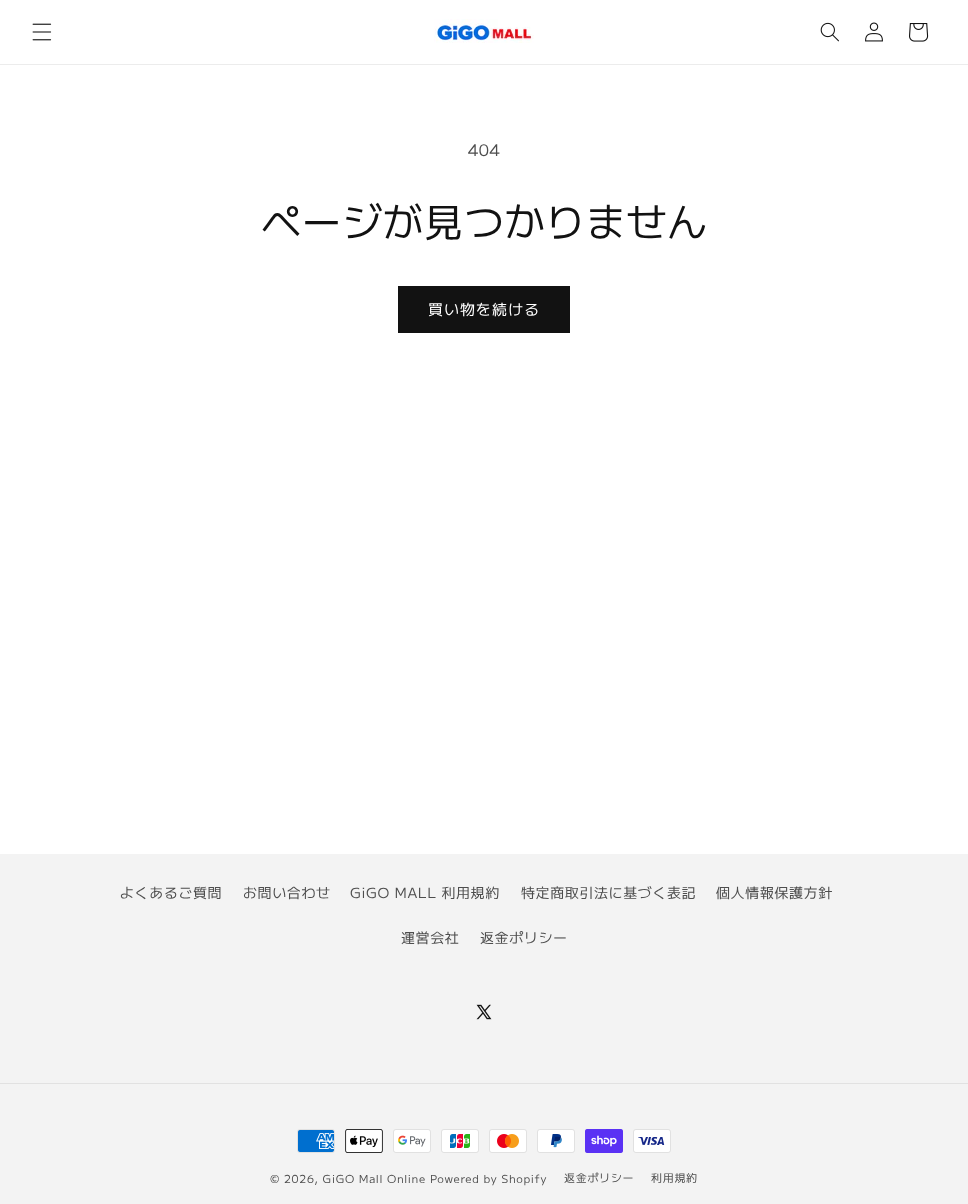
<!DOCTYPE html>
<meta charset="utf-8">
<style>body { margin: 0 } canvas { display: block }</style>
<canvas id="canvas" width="968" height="1204"></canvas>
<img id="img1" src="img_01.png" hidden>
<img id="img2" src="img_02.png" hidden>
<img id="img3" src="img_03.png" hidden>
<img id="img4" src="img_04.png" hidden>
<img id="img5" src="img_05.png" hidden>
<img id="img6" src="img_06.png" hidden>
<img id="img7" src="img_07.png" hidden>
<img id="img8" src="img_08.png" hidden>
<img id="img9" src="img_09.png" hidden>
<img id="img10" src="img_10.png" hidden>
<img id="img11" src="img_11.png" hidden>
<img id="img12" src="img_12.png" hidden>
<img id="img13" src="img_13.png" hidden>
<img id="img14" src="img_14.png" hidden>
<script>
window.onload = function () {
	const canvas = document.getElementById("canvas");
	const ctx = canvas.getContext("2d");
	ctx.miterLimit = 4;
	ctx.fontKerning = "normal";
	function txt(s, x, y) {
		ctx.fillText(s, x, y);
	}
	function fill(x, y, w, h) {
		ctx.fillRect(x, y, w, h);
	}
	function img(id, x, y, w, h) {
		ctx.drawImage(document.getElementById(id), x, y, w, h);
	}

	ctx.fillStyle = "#FFFFFF";
	fill(0, 0, 968, 1204);
	ctx.fillStyle = "#ECECEC";
	fill(0, 64, 968, 1);
	img("img1", 32, 23, 20, 18);
	img("img2", 434, 19, 100, 24);
	img("img3", 820, 22, 19, 20);
	img("img4", 865, 22, 18, 20);
	img("img5", 909, 23, 20, 19);
	ctx.fillStyle = "#121212";
	fill(398, 286, 172, 47);
	ctx.fillStyle = "#F3F3F3";
	fill(0, 854, 968, 350);
	img("img6", 476, 1004, 16, 16);
	ctx.fillStyle = "#E1E1E1";
	fill(0, 1083, 968, 1);
	img("img7", 297, 1129, 38, 24);
	img("img8", 345, 1129, 38, 24);
	img("img9", 393, 1129, 38, 24);
	img("img10", 441, 1129, 38, 24);
	img("img11", 489, 1129, 38, 24);
	img("img12", 537, 1129, 38, 24);
	img("img13", 585, 1129, 38, 24);
	img("img14", 633, 1129, 38, 24);
	ctx.letterSpacing = "0.6px";
	ctx.font = "16px 'M PLUS 1'";
	ctx.fillStyle = "#4D4D4D";
	txt("404", 468, 156);
	ctx.font = "40px 'M PLUS 1'";
	ctx.fillStyle = "#121212";
	txt("ページが見つかりません", 261, 237);
	ctx.letterSpacing = "1px";
	ctx.font = "15px 'M PLUS 1'";
	ctx.fillStyle = "#FFFFFF";
	txt("買い物を続ける", 428, 315);
	ctx.letterSpacing = "0.6px";
	ctx.font = "14px 'M PLUS 1'";
	ctx.fillStyle = "#4D4D4D";
	txt("よくあるご質問", 120, 898);
	txt("お問い合わせ", 243, 898);
	txt("GiGO MALL 利用規約", 350, 898);
	txt("特定商取引法に基づく表記", 521, 898);
	txt("個人情報保護方針", 716, 898);
	txt("運営会社", 401, 943);
	txt("返金ポリシー", 480, 943);
	ctx.letterSpacing = "0.7px";
	ctx.font = "11px 'M PLUS 1'";
	txt("© 2026, GiGO Mall Online", 270, 1183);
	txt("Powered by Shopify", 430, 1183);
	txt("返金ポリシー", 564, 1182);
	txt("利用規約", 651, 1182);
};
</script>
